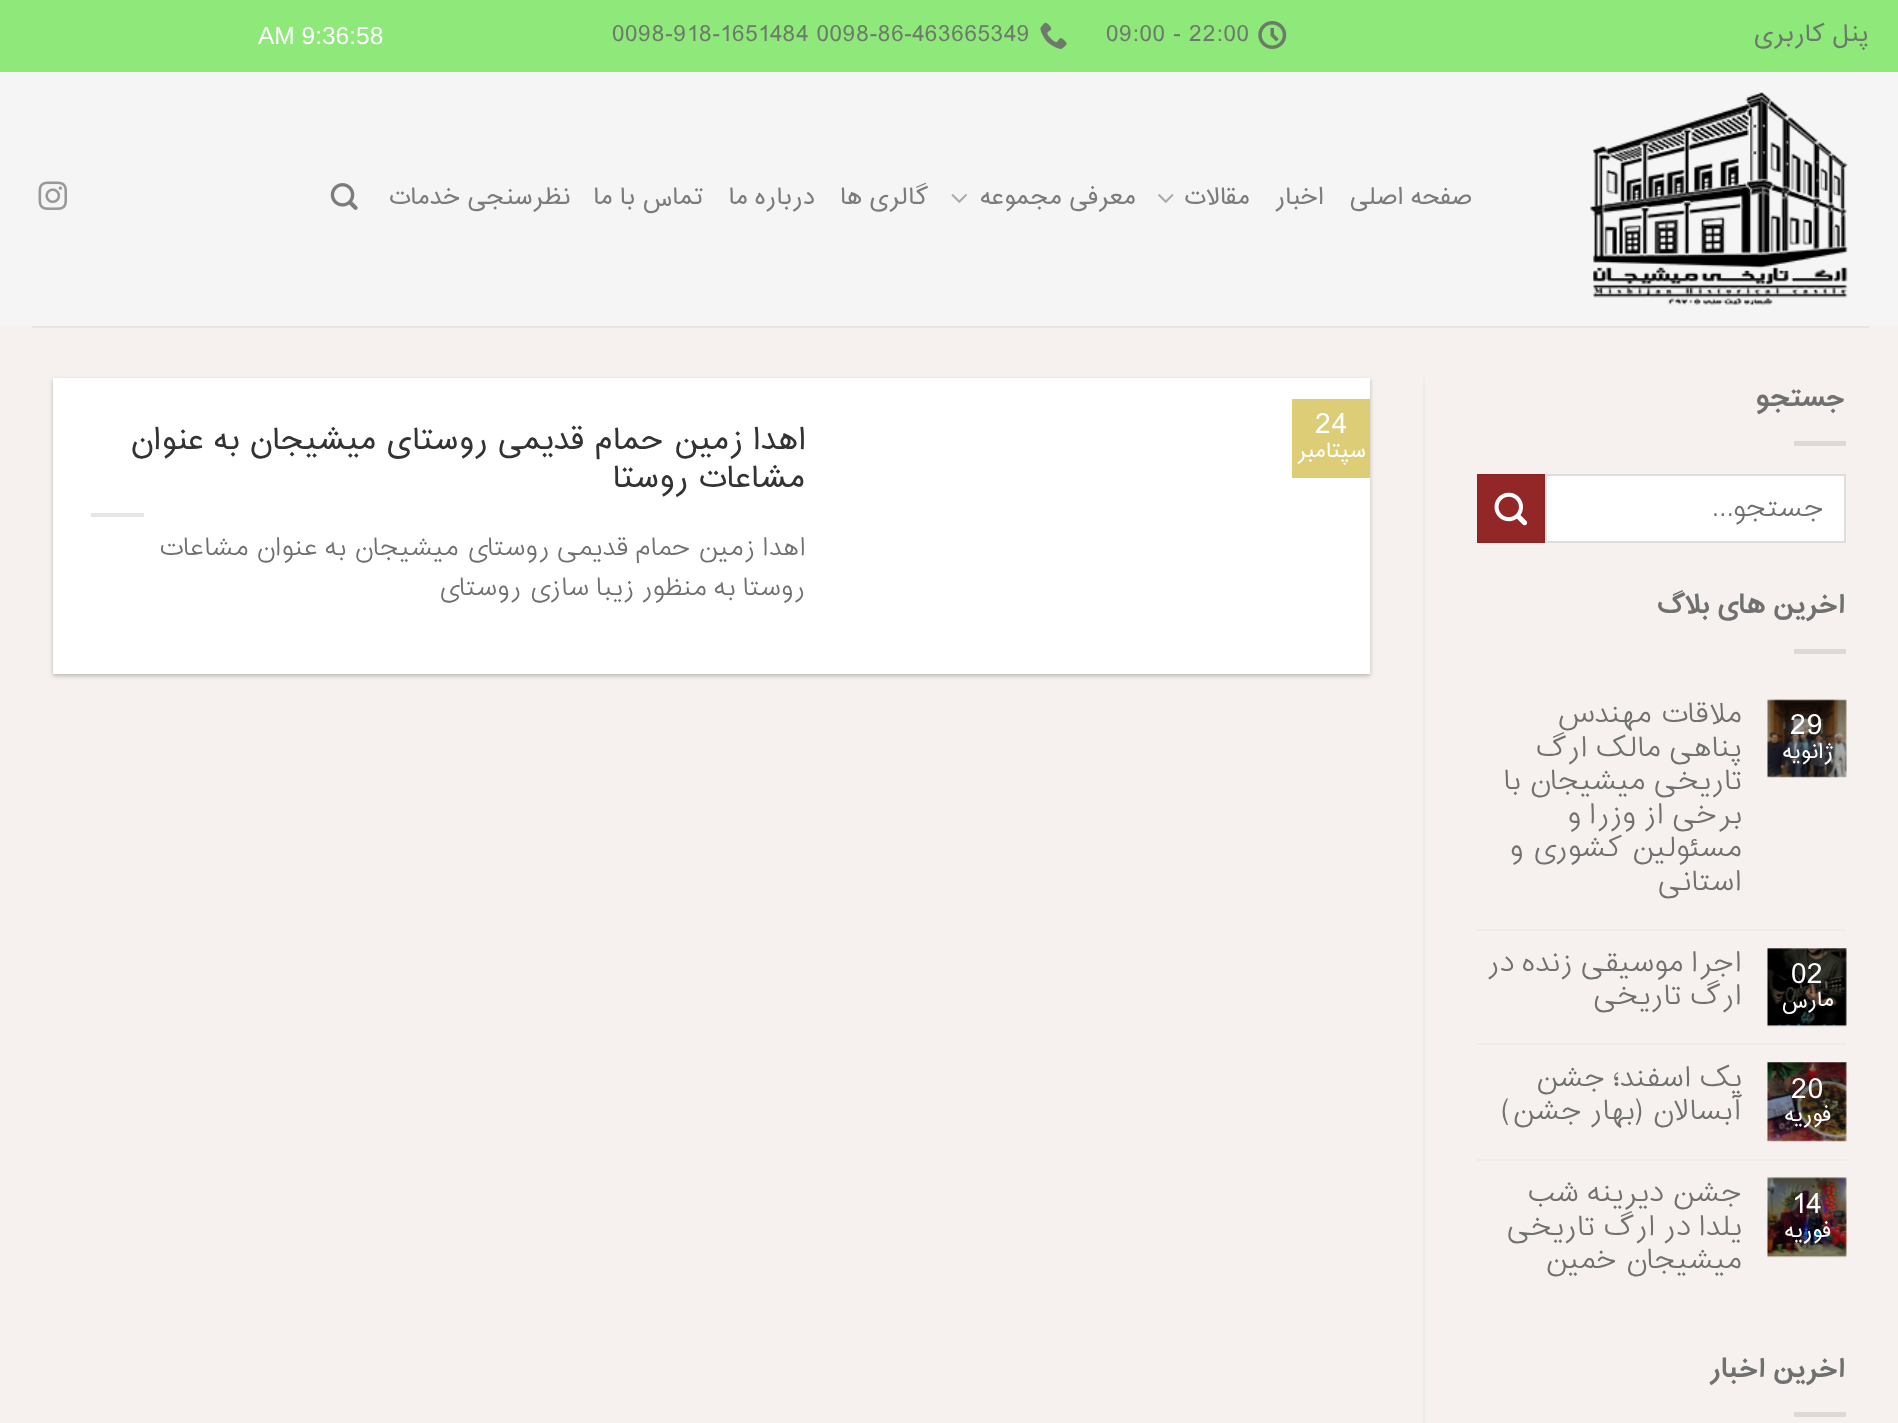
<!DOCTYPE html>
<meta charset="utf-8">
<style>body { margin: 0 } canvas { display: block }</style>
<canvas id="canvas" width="1898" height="1423"></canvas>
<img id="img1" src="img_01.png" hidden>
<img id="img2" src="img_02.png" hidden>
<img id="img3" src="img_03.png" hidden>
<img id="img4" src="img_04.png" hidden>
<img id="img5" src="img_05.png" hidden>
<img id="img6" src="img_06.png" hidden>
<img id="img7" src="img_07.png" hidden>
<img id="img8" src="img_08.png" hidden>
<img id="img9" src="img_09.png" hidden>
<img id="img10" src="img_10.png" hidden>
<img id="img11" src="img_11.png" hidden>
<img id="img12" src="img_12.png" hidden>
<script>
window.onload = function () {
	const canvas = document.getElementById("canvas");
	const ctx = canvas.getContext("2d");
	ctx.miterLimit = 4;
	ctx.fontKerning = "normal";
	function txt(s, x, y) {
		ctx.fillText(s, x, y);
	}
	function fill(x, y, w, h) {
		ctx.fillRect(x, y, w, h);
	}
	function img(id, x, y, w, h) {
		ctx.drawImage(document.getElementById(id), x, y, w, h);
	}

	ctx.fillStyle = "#F6F1EE";
	fill(0, 0, 1898, 1423);
	ctx.fillStyle = "#F5F5F5";
	fill(0, 72, 1898, 254);
	ctx.fillStyle = "#8EE87A";
	fill(0, 0, 1898, 72);
	img("img1", 1258, 21, 29, 28);
	img("img2", 1040, 22, 27, 27);
	img("img3", 1590, 92, 258, 213);
	img("img4", 1158, 194, 16, 9);
	img("img5", 951, 194, 16, 9);
	img("img6", 330, 183, 28, 27);
	img("img7", 38, 181, 29, 29);
	ctx.fillStyle = "#E9E4E1";
	fill(32, 326, 1837, 2);
	ctx.fillStyle = "#DDD9D6";
	fill(1794, 441, 52, 5);
	ctx.fillStyle = "#FFFFFF";
	ctx.beginPath();
	ctx.rect(1546, 475, 299, 67);
	ctx.fill();
	ctx.strokeStyle = "#DDDDDD";
	ctx.lineWidth = 2;
	ctx.stroke();
	ctx.fillStyle = "#932727";
	ctx.beginPath();
	ctx.rect(1478, 475, 66, 67);
	ctx.fill();
	ctx.strokeStyle = "#8C2525";
	ctx.stroke();
	img("img8", 1494, 492, 34, 34);
	ctx.fillStyle = "#DDD9D6";
	fill(1794, 649, 52, 5);
	img("img9", 1767, 699, 80, 79);
	ctx.fillStyle = "#ECECEC";
	fill(1477, 929, 369, 2);
	img("img10", 1767, 948, 80, 79);
	fill(1477, 1043, 369, 2);
	img("img11", 1767, 1062, 80, 80);
	fill(1477, 1159, 369, 2);
	img("img12", 1767, 1177, 80, 81);
	ctx.fillStyle = "#DDD9D6";
	fill(1794, 1412, 52, 5);
	ctx.fillStyle = "#ECECEC";
	fill(1423, 378, 2, 1045);
	ctx.fillStyle = "rgba(0, 0, 0, 0.24)";
	ctx.filter = "blur(2px)";
	ctx.beginPath();
	ctx.rect(53, 380, 1317, 296);
	ctx.fill();
	ctx.filter = "none";
	ctx.fillStyle = "#FFFFFF";
	fill(53, 378, 1317, 296);
	ctx.fillStyle = "#DECD77";
	fill(1292, 399, 78, 79);
	ctx.fillStyle = "#E6E6E6";
	fill(91, 513, 53, 4);
	ctx.direction = "rtl";
	ctx.font = "22.4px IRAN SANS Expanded";
	ctx.fillStyle = "#6C7A69";
	txt("پنل کاربری", 1868, 41);
	ctx.letterSpacing = "0.45px";
	ctx.direction = "ltr";
	txt("09:00 - 22:00", 1106, 41);
	txt("0098-918-1651484 0098-86-463665349", 612, 41);
	ctx.letterSpacing = "0px";
	ctx.font = "24.5px Liberation Sans";
	ctx.fillStyle = "#FFFFFF";
	txt("AM 9:36:58", 258, 44);
	ctx.letterSpacing = "0.45px";
	ctx.wordSpacing = "-1px";
	ctx.direction = "rtl";
	ctx.font = "22.4px IRAN SANS Expanded";
	ctx.fillStyle = "#7B7B7B";
	txt("صفحه اصلی", 1472, 204);
	ctx.wordSpacing = "0px";
	txt("اخبار", 1324, 204);
	txt("مقالات", 1250, 204);
	ctx.wordSpacing = "-1px";
	txt("معرفی مجموعه", 1136, 204);
	txt("گالری ها", 928, 204);
	txt("درباره ما", 815, 204);
	txt("تماس با ما", 703, 204);
	txt("نظرسنجی خدمات", 570, 204);
	ctx.letterSpacing = "0px";
	ctx.wordSpacing = "0px";
	ctx.font = "bold 28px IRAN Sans";
	ctx.fillStyle = "#707070";
	txt("جستجو", 1846, 406);
	ctx.font = "300 27px IRAN Sans";
	txt("جستجو…", 1824, 516);
	ctx.font = "bold 28px IRAN Sans";
	txt("اخرین های بلاگ", 1846, 613);
	ctx.direction = "ltr";
	ctx.font = "28px IRAN SANS Expanded";
	ctx.fillStyle = "#FFFFFF";
	txt("29", 1790, 734);
	ctx.direction = "rtl";
	ctx.font = "19.5px IRAN SANS Expanded";
	txt("ژانویه", 1833, 758);
	ctx.font = "300 28px IRAN Sans";
	ctx.fillStyle = "#707070";
	txt("ملاقات مهندس", 1742, 722);
	txt("پناهی مالک ارگ", 1742, 756);
	txt("تاریخی میشیجان با", 1742, 789);
	txt("برخی از وزرا و", 1742, 823);
	txt("مسئولین کشوری و", 1742, 856);
	txt("استانی", 1742, 890);
	ctx.direction = "ltr";
	ctx.font = "28px IRAN SANS Expanded";
	ctx.fillStyle = "#FFFFFF";
	txt("02", 1791, 983);
	ctx.direction = "rtl";
	ctx.font = "19.5px IRAN SANS Expanded";
	txt("مارس", 1834, 1006);
	ctx.font = "300 28px IRAN Sans";
	ctx.fillStyle = "#707070";
	txt("اجرا موسیقی زنده در", 1742, 971);
	txt("ارگ تاریخی", 1742, 1004);
	ctx.direction = "ltr";
	ctx.font = "28px IRAN SANS Expanded";
	ctx.fillStyle = "#FFFFFF";
	txt("20", 1791, 1098);
	ctx.direction = "rtl";
	ctx.font = "19.5px IRAN SANS Expanded";
	txt("فوریه", 1831, 1121);
	ctx.font = "300 28px IRAN Sans";
	ctx.fillStyle = "#707070";
	txt("یک اسفند؛ جشن", 1742, 1086);
	txt("آبسالان (بهار جشن)", 1742, 1119);
	ctx.direction = "ltr";
	ctx.font = "28px IRAN SANS Expanded";
	ctx.fillStyle = "#FFFFFF";
	txt("14", 1792, 1213);
	ctx.direction = "rtl";
	ctx.font = "19.5px IRAN SANS Expanded";
	txt("فوریه", 1831, 1237);
	ctx.font = "300 28px IRAN Sans";
	ctx.fillStyle = "#707070";
	txt("جشن دیرینه شب", 1742, 1201);
	txt("یلدا در ارگ تاریخی", 1742, 1235);
	txt("میشیجان خمین", 1742, 1268);
	ctx.font = "bold 28px IRAN Sans";
	txt("اخرین اخبار", 1846, 1377);
	ctx.direction = "ltr";
	ctx.font = "28px IRAN SANS Expanded";
	ctx.fillStyle = "#FFFFFF";
	txt("24", 1315, 433);
	ctx.direction = "rtl";
	ctx.font = "19.5px IRAN SANS Expanded";
	txt("سپتامبر", 1366, 457);
	ctx.font = "29px IRAN SANS Expanded";
	ctx.fillStyle = "#333333";
	txt("اهدا زمین حمام قدیمی روستای میشیجان به عنوان", 806, 449);
	txt("مشاعات روستا", 805, 487);
	ctx.font = "300 25.2px IRAN Sans";
	ctx.fillStyle = "#707070";
	txt("اهدا زمین حمام قدیمی روستای میشیجان به عنوان مشاعات", 806, 555);
	txt("روستا به منظور زیبا سازی روستای", 805, 595);
};
</script>
